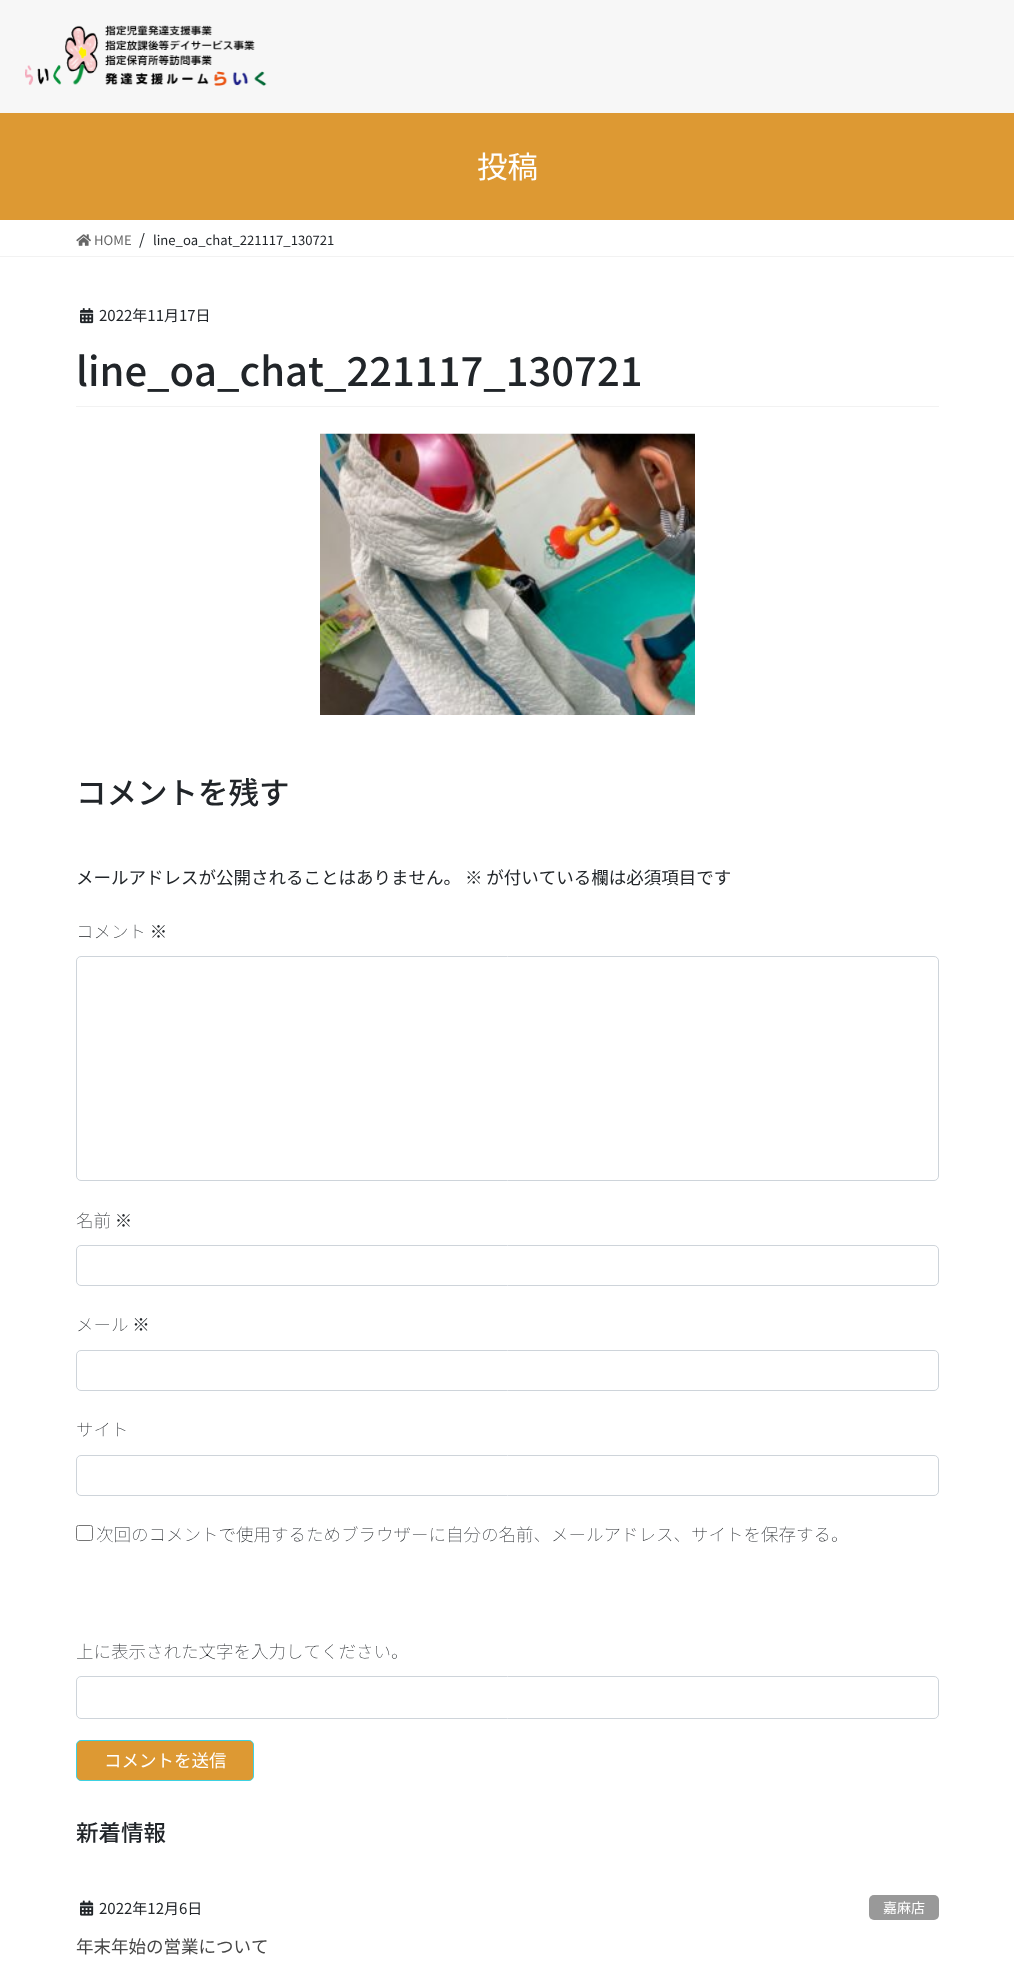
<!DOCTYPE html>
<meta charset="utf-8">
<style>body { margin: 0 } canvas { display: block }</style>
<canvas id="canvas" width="1014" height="1970"></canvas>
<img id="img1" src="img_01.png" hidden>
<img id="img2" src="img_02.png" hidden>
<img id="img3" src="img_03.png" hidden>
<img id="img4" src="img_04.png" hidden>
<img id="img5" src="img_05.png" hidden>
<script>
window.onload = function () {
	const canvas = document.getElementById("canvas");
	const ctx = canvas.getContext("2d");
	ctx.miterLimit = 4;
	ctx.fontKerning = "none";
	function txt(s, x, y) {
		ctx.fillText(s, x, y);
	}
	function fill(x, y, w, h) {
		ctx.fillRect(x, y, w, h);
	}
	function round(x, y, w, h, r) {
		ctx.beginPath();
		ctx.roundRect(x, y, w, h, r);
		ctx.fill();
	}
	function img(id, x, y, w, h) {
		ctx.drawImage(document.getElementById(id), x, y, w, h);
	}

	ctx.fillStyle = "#FFFFFF";
	fill(0, 0, 1014, 1970);
	ctx.fillStyle = "#F7F7F7";
	fill(0, 0, 1014, 113);
	img("img1", 25, 25, 242, 61);
	ctx.fillStyle = "#DD9933";
	fill(0, 113, 1014, 107);
	ctx.fillStyle = "#F2F2F2";
	fill(0, 256, 1014, 1);
	img("img2", 76, 234, 15, 12);
	fill(76, 406, 863, 1);
	img("img3", 80, 308, 14, 16);
	img("img4", 320, 433, 375, 282);
	ctx.beginPath();
	ctx.roundRect(76.5, 956.5, 862, 224, 4.5);
	ctx.strokeStyle = "#CED4DA";
	ctx.stroke();
	ctx.beginPath();
	ctx.roundRect(76.5, 1245.5, 862, 40, 4.5);
	ctx.stroke();
	ctx.beginPath();
	ctx.roundRect(76.5, 1350.5, 862, 40, 4.5);
	ctx.stroke();
	ctx.beginPath();
	ctx.roundRect(76.5, 1455.5, 862, 40, 4.5);
	ctx.stroke();
	ctx.beginPath();
	ctx.roundRect(76.5, 1525.5, 16, 15, 2);
	ctx.strokeStyle = "#767676";
	ctx.stroke();
	ctx.beginPath();
	ctx.roundRect(76.5, 1676.5, 862, 42, 4.5);
	ctx.strokeStyle = "#CED4DA";
	ctx.stroke();
	ctx.fillStyle = "#DD9933";
	ctx.beginPath();
	ctx.roundRect(76.5, 1740.5, 177, 40, 4.5);
	ctx.fill();
	ctx.strokeStyle = "#3DD2E2";
	ctx.stroke();
	img("img5", 80, 1900, 14, 16);
	ctx.fillStyle = "#999999";
	round(869, 1895, 70, 25, 5);
	ctx.font = "30.5px Noto Sans JP";
	ctx.fillStyle = "#FFFFFF";
	txt("投稿", 477, 178);
	ctx.font = "13.1px Noto Sans JP";
	ctx.fillStyle = "#666666";
	txt("HOME", 94, 245);
	ctx.font = "15px Noto Sans JP";
	ctx.fillStyle = "#212529";
	txt("/", 139, 245);
	ctx.font = "13.1px Noto Sans JP";
	txt("line_oa_chat_221117_130721", 153, 245);
	ctx.font = "15px Noto Sans JP";
	txt("2022年11月17日", 99, 321);
	ctx.font = "500 40px Noto Sans JP";
	txt("line_oa_chat_221117_130721", 76, 386);
	ctx.font = "500 30.5px Noto Sans JP";
	txt("コメントを残す", 76, 804);
	ctx.font = "17.5px Noto Sans JP";
	txt("メールアドレスが公開されることはありません。 ※ が付いている欄は必須項目です", 76, 884);
	ctx.font = "100 17.5px Noto Sans JP";
	txt("コメント ※", 76, 938);
	txt("名前 ※", 76, 1227);
	txt("メール ※", 76, 1331);
	txt("サイト", 76, 1436);
	txt("次回のコメントで使用するためブラウザーに自分の名前、メールアドレス、サイトを保存する。", 96, 1541);
	txt("上に表示された文字を入力してください。", 76, 1658);
	ctx.font = "17.5px Noto Sans JP";
	ctx.fillStyle = "#FFFFFF";
	txt("コメントを送信", 104, 1767);
	ctx.font = "500 22.5px Noto Sans JP";
	ctx.fillStyle = "#212529";
	txt("新着情報", 76, 1841);
	ctx.font = "15px Noto Sans JP";
	txt("2022年12月6日", 99, 1914);
	ctx.font = "14px Noto Sans JP";
	ctx.fillStyle = "#FFFFFF";
	txt("嘉麻店", 883, 1913);
	ctx.font = "17.5px Noto Sans JP";
	ctx.fillStyle = "#464646";
	txt("年末年始の営業について", 76, 1953);
};
</script>
